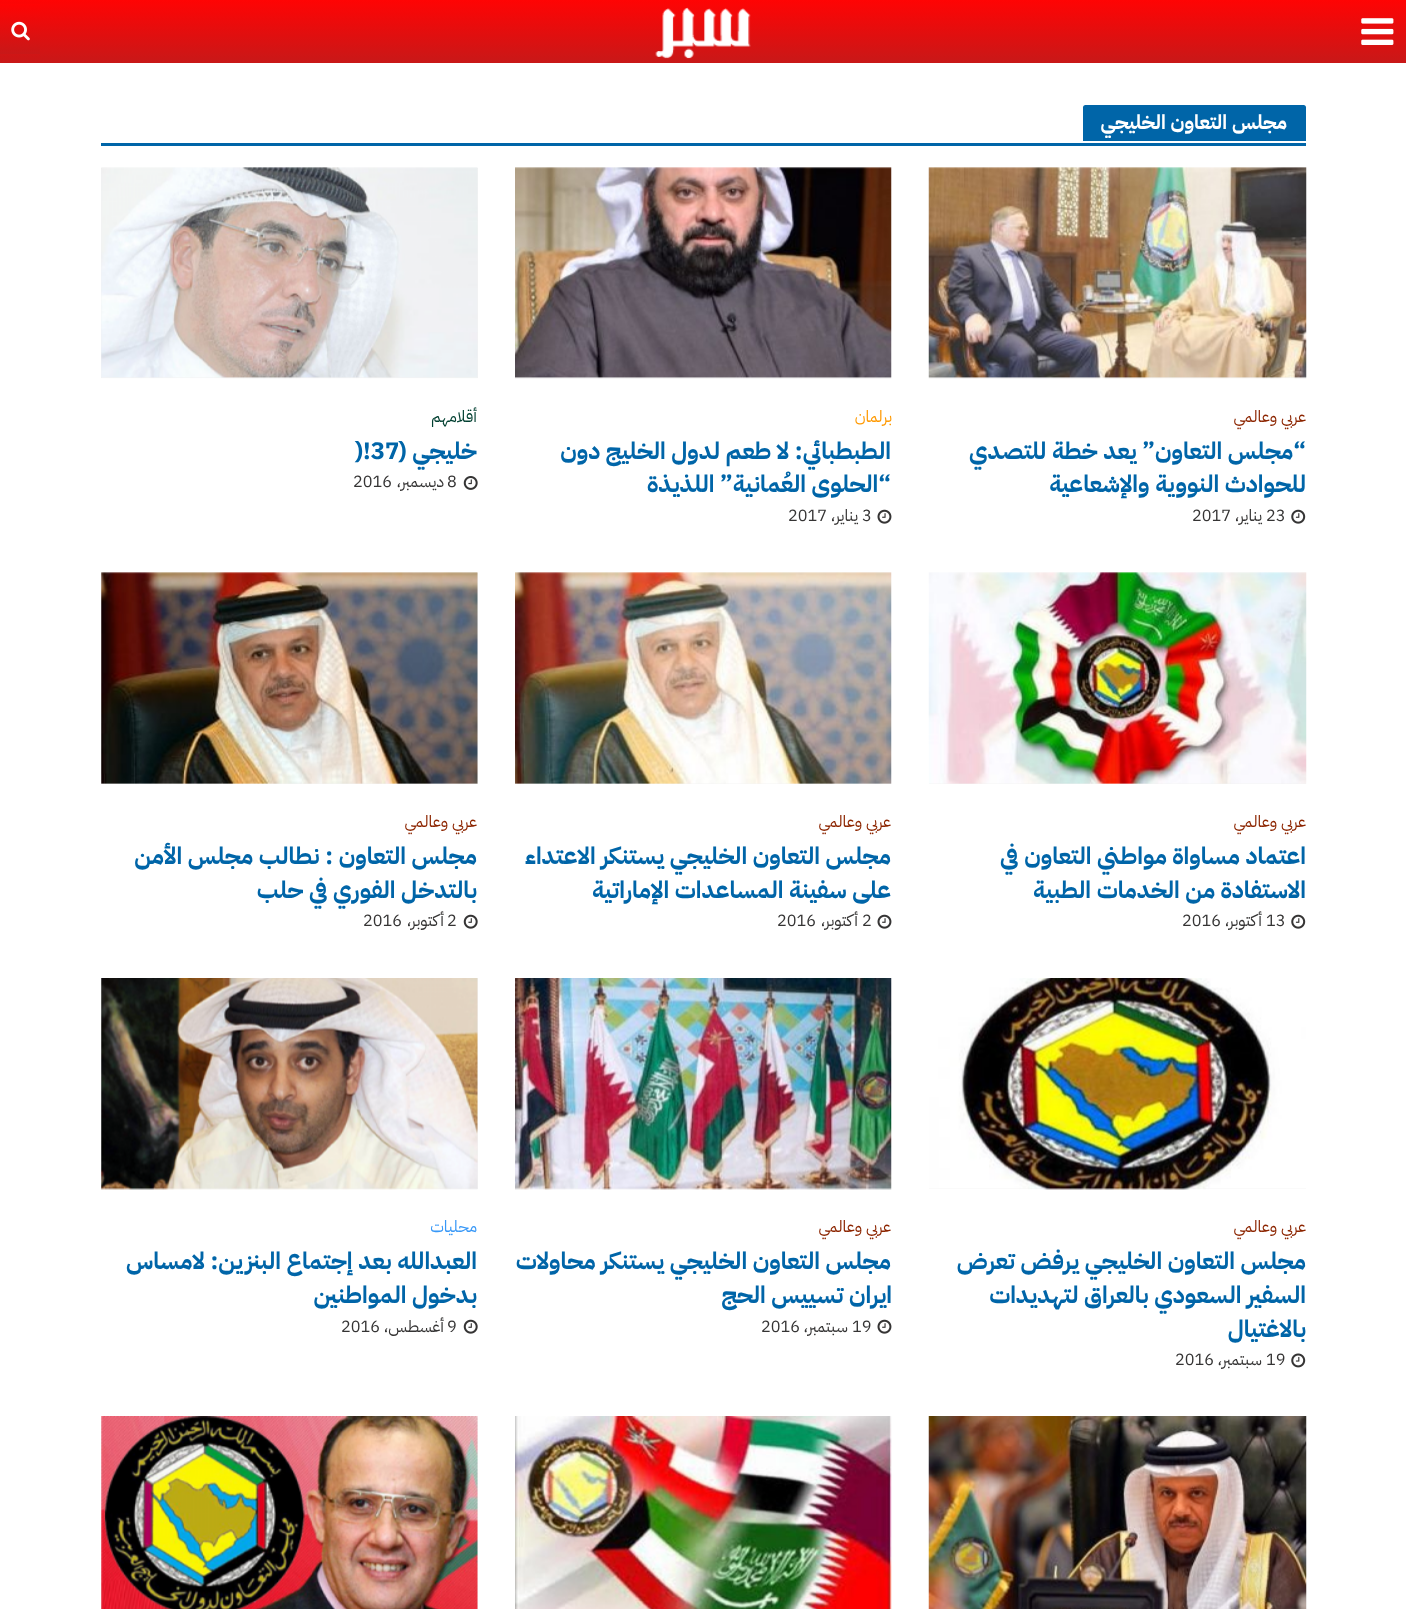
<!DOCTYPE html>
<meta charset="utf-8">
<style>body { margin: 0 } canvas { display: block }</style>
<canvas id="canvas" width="1406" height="1609"></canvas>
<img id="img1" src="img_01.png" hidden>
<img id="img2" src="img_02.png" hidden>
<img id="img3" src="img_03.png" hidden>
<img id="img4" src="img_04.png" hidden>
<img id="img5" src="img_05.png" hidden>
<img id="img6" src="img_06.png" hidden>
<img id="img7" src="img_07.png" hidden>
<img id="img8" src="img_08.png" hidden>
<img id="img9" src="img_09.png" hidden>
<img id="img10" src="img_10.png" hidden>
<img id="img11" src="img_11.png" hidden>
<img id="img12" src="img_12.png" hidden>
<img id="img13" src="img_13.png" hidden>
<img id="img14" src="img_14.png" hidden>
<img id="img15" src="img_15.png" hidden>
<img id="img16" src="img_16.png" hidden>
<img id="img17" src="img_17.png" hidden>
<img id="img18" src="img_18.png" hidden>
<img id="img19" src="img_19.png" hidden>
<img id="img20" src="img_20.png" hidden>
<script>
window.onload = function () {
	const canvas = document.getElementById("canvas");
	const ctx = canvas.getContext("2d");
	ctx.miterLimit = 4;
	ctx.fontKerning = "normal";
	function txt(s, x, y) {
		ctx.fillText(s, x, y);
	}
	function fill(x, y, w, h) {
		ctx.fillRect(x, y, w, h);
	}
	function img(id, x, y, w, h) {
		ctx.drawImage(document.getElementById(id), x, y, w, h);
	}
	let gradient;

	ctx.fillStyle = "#FFFFFF";
	fill(0, 0, 1406, 1609);
	gradient = ctx.createLinearGradient(703, 63, 703, 0);
	gradient.addColorStop(0, "#C81818");
	gradient.addColorStop(1, "#FF0404");
	ctx.fillStyle = gradient;
	fill(0, 0, 1406, 63);
	img("img1", 1361, 18, 33, 27);
	img("img2", 655, 7, 96, 52);
	gradient = ctx.createLinearGradient(20, 54, 20, 3.8);
	gradient.addColorStop(0, "#C81818");
	gradient.addColorStop(1, "#FF0404");
	ctx.fillStyle = gradient;
	fill(0, 4, 40, 50);
	img("img3", 11, 21, 19, 20);
	ctx.fillStyle = "#0065A8";
	ctx.beginPath();
	ctx.roundRect(1083, 105, 223, 36, [2.5, 2.5, 0, 0]);
	ctx.fill();
	fill(101, 143, 1205, 3);
	ctx.fillStyle = "#F2F2F2";
	fill(929, 168, 377, 210);
	img("img4", 928, 167, 379, 212);
	img("img5", 1291, 509, 15, 15);
	fill(515, 168, 376, 210);
	img("img6", 515, 167, 377, 212);
	img("img7", 877, 509, 15, 15);
	fill(101, 168, 377, 210);
	img("img8", 101, 167, 377, 212);
	img("img9", 463, 476, 15, 14);
	fill(929, 573, 377, 211);
	img("img10", 928, 572, 379, 212);
	img("img5", 1291, 914, 15, 15);
	fill(515, 573, 376, 211);
	img("img11", 515, 572, 377, 212);
	img("img7", 877, 914, 15, 15);
	fill(101, 573, 377, 211);
	img("img12", 101, 572, 377, 212);
	img("img13", 463, 914, 15, 15);
	fill(929, 1188, 377, 1);
	img("img14", 929, 978, 377, 212);
	img("img15", 1291, 1353, 15, 15);
	fill(515, 1188, 376, 1);
	img("img16", 515, 978, 377, 212);
	img("img7", 877, 1319, 15, 15);
	fill(101, 978, 377, 211);
	img("img17", 101, 978, 377, 212);
	img("img13", 463, 1319, 15, 15);
	img("img18", 928, 1416, 379, 193);
	img("img19", 515, 1416, 377, 193);
	fill(101, 1416, 377, 193);
	img("img20", 101, 1416, 377, 193);
	ctx.direction = "rtl";
	ctx.font = "bold 20px IBM Plex Sans Arabic";
	ctx.fillStyle = "#FFFFFF";
	txt("مجلس التعاون الخليجي", 1287, 129);
	ctx.font = "16.25px IBM Plex Sans Arabic";
	ctx.fillStyle = "#8C2500";
	txt("عربي وعالمي", 1306, 422);
	ctx.font = "bold 23.75px IBM Plex Sans Arabic";
	ctx.fillStyle = "#0065A8";
	txt("“مجلس التعاون” يعد خطة للتصدي", 1306, 459);
	txt("للحوادث النووية والإشعاعية", 1306, 492);
	ctx.direction = "ltr";
	ctx.font = "16.25px IBM Plex Sans Arabic";
	ctx.fillStyle = "#353434";
	txt("23", 1266, 521);
	ctx.direction = "rtl";
	txt("يناير،", 1262, 521);
	ctx.direction = "ltr";
	txt("2017", 1192, 521);
	ctx.direction = "rtl";
	ctx.fillStyle = "#FF9900";
	txt("برلمان", 892, 422);
	ctx.font = "bold 23.75px IBM Plex Sans Arabic";
	ctx.fillStyle = "#0065A8";
	txt("الطبطبائي: لا طعم لدول الخليج دون", 891, 459);
	txt("“الحلوى العُمانية” اللذيذة", 891, 492);
	ctx.direction = "ltr";
	ctx.font = "16.25px IBM Plex Sans Arabic";
	ctx.fillStyle = "#353434";
	txt("3", 862, 521);
	ctx.direction = "rtl";
	txt("يناير،", 858, 521);
	ctx.direction = "ltr";
	txt("2017", 788, 521);
	ctx.direction = "rtl";
	ctx.fillStyle = "#003F30";
	txt("أقلامهم", 477, 422);
	ctx.font = "bold 23.75px IBM Plex Sans Arabic";
	ctx.fillStyle = "#0065A8";
	txt("خليجي (", 477, 459);
	ctx.direction = "ltr";
	txt(")!37", 355, 459);
	ctx.font = "16.25px IBM Plex Sans Arabic";
	ctx.fillStyle = "#353434";
	txt("8", 447, 487);
	ctx.direction = "rtl";
	txt("ديسمبر،", 444, 487);
	ctx.direction = "ltr";
	txt("2016", 353, 487);
	ctx.direction = "rtl";
	ctx.fillStyle = "#8C2500";
	txt("عربي وعالمي", 1306, 827);
	ctx.font = "bold 23.75px IBM Plex Sans Arabic";
	ctx.fillStyle = "#0065A8";
	txt("اعتماد مساواة مواطني التعاون في", 1306, 864);
	txt("الاستفادة من الخدمات الطبية", 1306, 898);
	ctx.direction = "ltr";
	ctx.font = "16.25px IBM Plex Sans Arabic";
	ctx.fillStyle = "#353434";
	txt("13", 1266, 926);
	ctx.direction = "rtl";
	txt("أكتوبر،", 1262, 926);
	ctx.direction = "ltr";
	txt("2016", 1182, 926);
	ctx.direction = "rtl";
	ctx.fillStyle = "#8C2500";
	txt("عربي وعالمي", 891, 827);
	ctx.font = "bold 23.75px IBM Plex Sans Arabic";
	ctx.fillStyle = "#0065A8";
	txt("مجلس التعاون الخليجي يستنكر الاعتداء", 891, 864);
	txt("على سفينة المساعدات الإماراتية", 891, 898);
	ctx.direction = "ltr";
	ctx.font = "16.25px IBM Plex Sans Arabic";
	ctx.fillStyle = "#353434";
	txt("2", 862, 926);
	ctx.direction = "rtl";
	txt("أكتوبر،", 858, 926);
	ctx.direction = "ltr";
	txt("2016", 777, 926);
	ctx.direction = "rtl";
	ctx.fillStyle = "#8C2500";
	txt("عربي وعالمي", 477, 827);
	ctx.font = "bold 23.75px IBM Plex Sans Arabic";
	ctx.fillStyle = "#0065A8";
	txt("مجلس التعاون : نطالب مجلس الأمن", 477, 864);
	txt("بالتدخل الفوري في حلب", 477, 898);
	ctx.direction = "ltr";
	ctx.font = "16.25px IBM Plex Sans Arabic";
	ctx.fillStyle = "#353434";
	txt("2", 447, 926);
	ctx.direction = "rtl";
	txt("أكتوبر،", 444, 926);
	ctx.direction = "ltr";
	txt("2016", 363, 926);
	ctx.direction = "rtl";
	ctx.fillStyle = "#8C2500";
	txt("عربي وعالمي", 1306, 1232);
	ctx.font = "bold 23.75px IBM Plex Sans Arabic";
	ctx.fillStyle = "#0065A8";
	txt("مجلس التعاون الخليجي يرفض تعرض", 1306, 1269);
	txt("السفير السعودي بالعراق لتهديدات", 1306, 1303);
	txt("بالاغتيال", 1306, 1337);
	ctx.direction = "ltr";
	ctx.font = "16.25px IBM Plex Sans Arabic";
	ctx.fillStyle = "#353434";
	txt("19", 1266, 1365);
	ctx.direction = "rtl";
	txt("سبتمبر،", 1262, 1365);
	ctx.direction = "ltr";
	txt("2016", 1175, 1365);
	ctx.direction = "rtl";
	ctx.fillStyle = "#8C2500";
	txt("عربي وعالمي", 891, 1232);
	ctx.font = "bold 23.75px IBM Plex Sans Arabic";
	ctx.fillStyle = "#0065A8";
	txt("مجلس التعاون الخليجي يستنكر محاولات", 891, 1269);
	txt("ايران تسييس الحج", 892, 1303);
	ctx.direction = "ltr";
	ctx.font = "16.25px IBM Plex Sans Arabic";
	ctx.fillStyle = "#353434";
	txt("19", 852, 1332);
	ctx.direction = "rtl";
	txt("سبتمبر،", 848, 1332);
	ctx.direction = "ltr";
	txt("2016", 761, 1332);
	ctx.direction = "rtl";
	ctx.fillStyle = "#3898F7";
	txt("محليات", 477, 1232);
	ctx.font = "bold 23.75px IBM Plex Sans Arabic";
	ctx.fillStyle = "#0065A8";
	txt("العبدالله بعد إجتماع البنزين: لامساس", 477, 1269);
	txt("بدخول المواطنين", 477, 1303);
	ctx.direction = "ltr";
	ctx.font = "16.25px IBM Plex Sans Arabic";
	ctx.fillStyle = "#353434";
	txt("9", 447, 1332);
	ctx.direction = "rtl";
	txt("أغسطس،", 444, 1332);
	ctx.direction = "ltr";
	txt("2016", 341, 1332);
};
</script>
